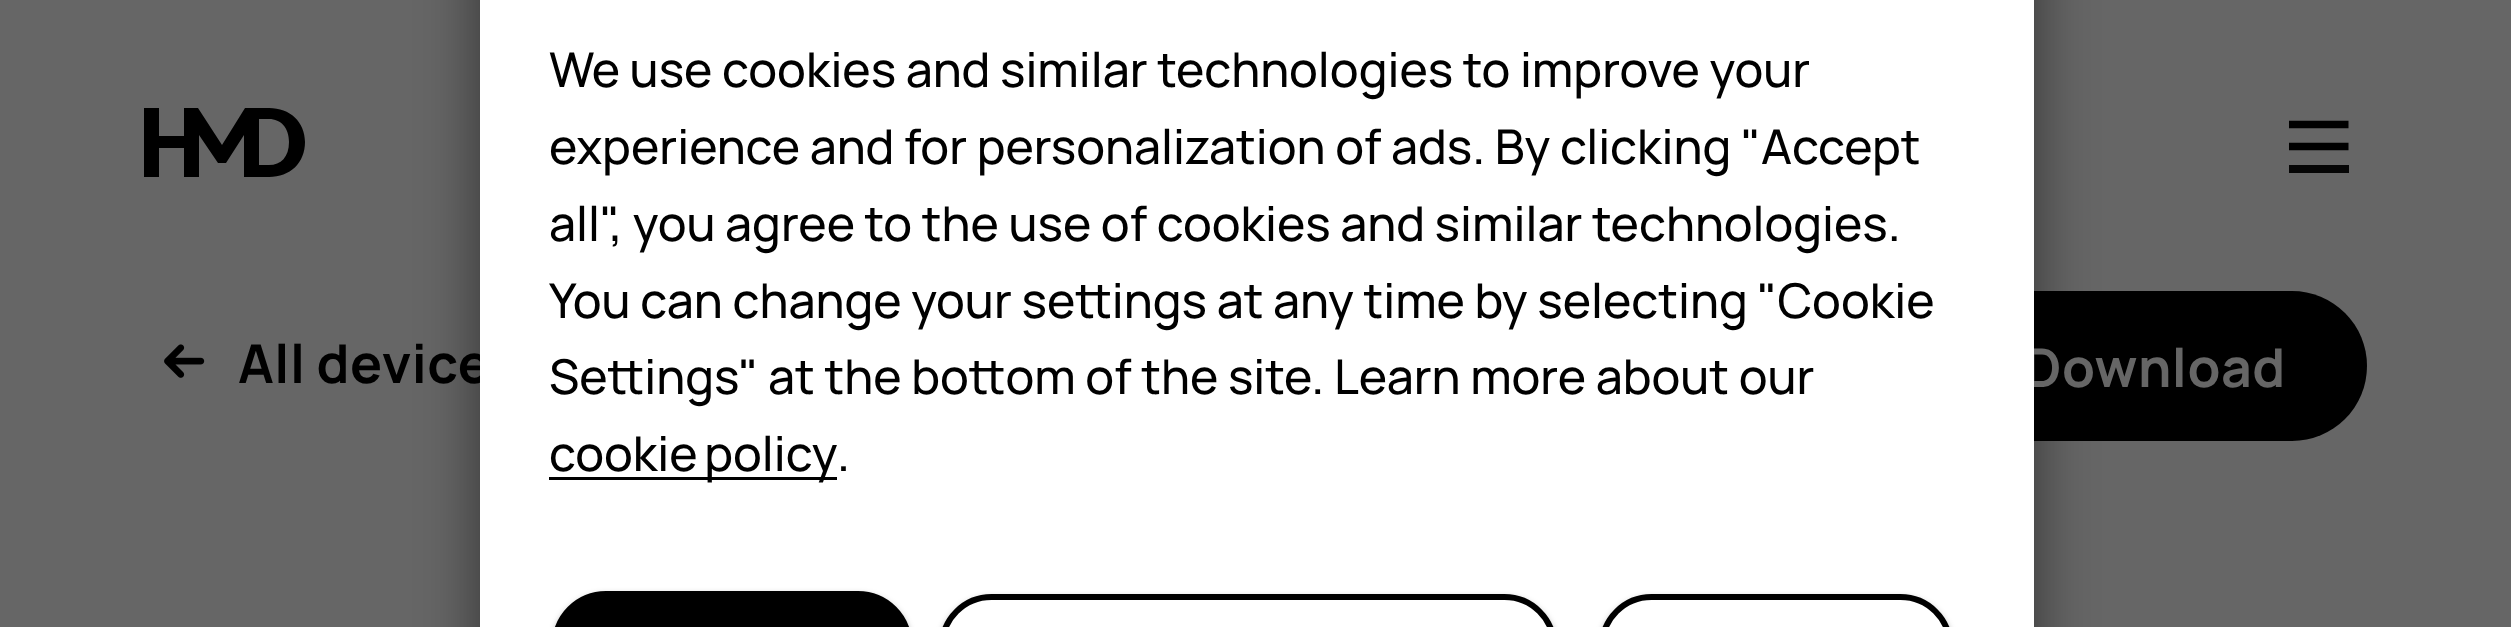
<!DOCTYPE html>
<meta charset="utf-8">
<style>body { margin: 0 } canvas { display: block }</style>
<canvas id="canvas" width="2511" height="627"></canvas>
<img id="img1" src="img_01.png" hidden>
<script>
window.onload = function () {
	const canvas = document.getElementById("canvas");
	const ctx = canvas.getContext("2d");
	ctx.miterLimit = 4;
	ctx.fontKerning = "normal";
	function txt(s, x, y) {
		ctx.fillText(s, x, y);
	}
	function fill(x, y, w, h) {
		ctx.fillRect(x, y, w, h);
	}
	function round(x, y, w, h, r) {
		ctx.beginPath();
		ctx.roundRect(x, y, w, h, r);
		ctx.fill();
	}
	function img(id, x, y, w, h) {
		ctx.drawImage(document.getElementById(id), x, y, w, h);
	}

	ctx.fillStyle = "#666666";
	fill(0, 0, 2511, 627);
	ctx.fillStyle = "#000000";
	round(1944, 291, 423, 150, 75);
	ctx.fillStyle = "rgba(0, 0, 0, 0.5)";
	ctx.filter = "blur(30px)";
	ctx.beginPath();
	ctx.roundRect(480, -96, 1554, 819, 6);
	ctx.fill();
	ctx.filter = "none";
	ctx.fillStyle = "#000000";
	ctx.beginPath();
	ctx.moveTo(269, 108);
	ctx.lineTo(245, 108);
	ctx.lineTo(222, 145);
	ctx.lineTo(198, 108);
	ctx.lineTo(184, 108);
	ctx.lineTo(184, 136);
	ctx.lineTo(159, 136);
	ctx.lineTo(159, 108);
	ctx.lineTo(144, 108);
	ctx.lineTo(144, 177);
	ctx.lineTo(159, 177);
	ctx.lineTo(159, 148);
	ctx.lineTo(184, 148);
	ctx.lineTo(184, 177);
	ctx.lineTo(199, 177);
	ctx.lineTo(199, 135);
	ctx.lineTo(218, 163);
	ctx.lineTo(226, 163);
	ctx.lineTo(244, 135);
	ctx.lineTo(244, 177);
	ctx.lineTo(269, 177);
	ctx.bezierCurveTo(290, 177, 305, 163, 305, 142);
	ctx.bezierCurveTo(305, 122, 290, 108, 269, 108);
	ctx.closePath();
	ctx.moveTo(269, 165);
	ctx.lineTo(259, 165);
	ctx.lineTo(259, 119);
	ctx.lineTo(269, 119);
	ctx.bezierCurveTo(281, 119, 289, 128, 289, 142);
	ctx.bezierCurveTo(289, 157, 281, 165, 269, 165);
	ctx.closePath();
	ctx.fill();
	ctx.fillStyle = "#060606";
	fill(2289, 165, 60, 8);
	ctx.beginPath();
	ctx.moveTo(2289, 146.5);
	ctx.lineTo(2348.5, 146.5);
	ctx.moveTo(2289, 124.5);
	ctx.lineTo(2348.5, 124.5);
	ctx.strokeStyle = "#000000";
	ctx.lineWidth = 7.5;
	ctx.stroke();
	img("img1", 164, 344, 41, 34);
	ctx.letterSpacing = "0.5px";
	ctx.font = "bold 53.5px Manrope";
	ctx.fillStyle = "#000000";
	txt("All device", 238, 383);
	ctx.fillStyle = "#666666";
	txt("Download", 2024, 387);
	ctx.fillStyle = "#FFFFFF";
	fill(480, 0, 1554, 627);
	ctx.fillStyle = "rgba(0, 0, 0, 0.3)";
	ctx.filter = "blur(3px)";
	ctx.beginPath();
	ctx.roundRect(552, 594, 360, 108, 66);
	ctx.fill();
	ctx.filter = "none";
	ctx.fillStyle = "#000000";
	ctx.beginPath();
	ctx.roundRect(555, 594, 354, 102, 63);
	ctx.fill();
	ctx.lineWidth = 6;
	ctx.stroke();
	ctx.fillStyle = "rgba(0, 0, 0, 0.3)";
	ctx.filter = "blur(3px)";
	ctx.beginPath();
	ctx.roundRect(939, 597, 618, 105, 66);
	ctx.fill();
	ctx.filter = "none";
	ctx.fillStyle = "#FFFFFF";
	ctx.beginPath();
	ctx.roundRect(942, 597, 612, 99, 63);
	ctx.fill();
	ctx.stroke();
	ctx.fillStyle = "rgba(0, 0, 0, 0.3)";
	ctx.filter = "blur(3px)";
	ctx.beginPath();
	ctx.roundRect(1599, 597, 354, 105, 66);
	ctx.fill();
	ctx.filter = "none";
	ctx.fillStyle = "#FFFFFF";
	ctx.beginPath();
	ctx.roundRect(1602, 597, 348, 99, 63);
	ctx.fill();
	ctx.stroke();
	ctx.letterSpacing = "0px";
	ctx.font = "500 48px Manrope";
	ctx.fillStyle = "#000000";
	txt(".", 837, 471);
	fill(549, 477, 288, 3);
	ctx.wordSpacing = "-3px";
	txt("cookie policy", 549, 471);
	ctx.wordSpacing = "0px";
	txt("Settings\" at the bottom of the site. Learn more about our", 549, 394);
	txt("You can change your settings at any time by selecting \"Cookie", 549, 318);
	txt("all\", you agree to the use of cookies and similar technologies.", 549, 241);
	txt("experience and for personalization of ads. By clicking \"Accept", 549, 164);
	txt("We use cookies and similar technologies to improve your", 549, 87);
};
</script>
